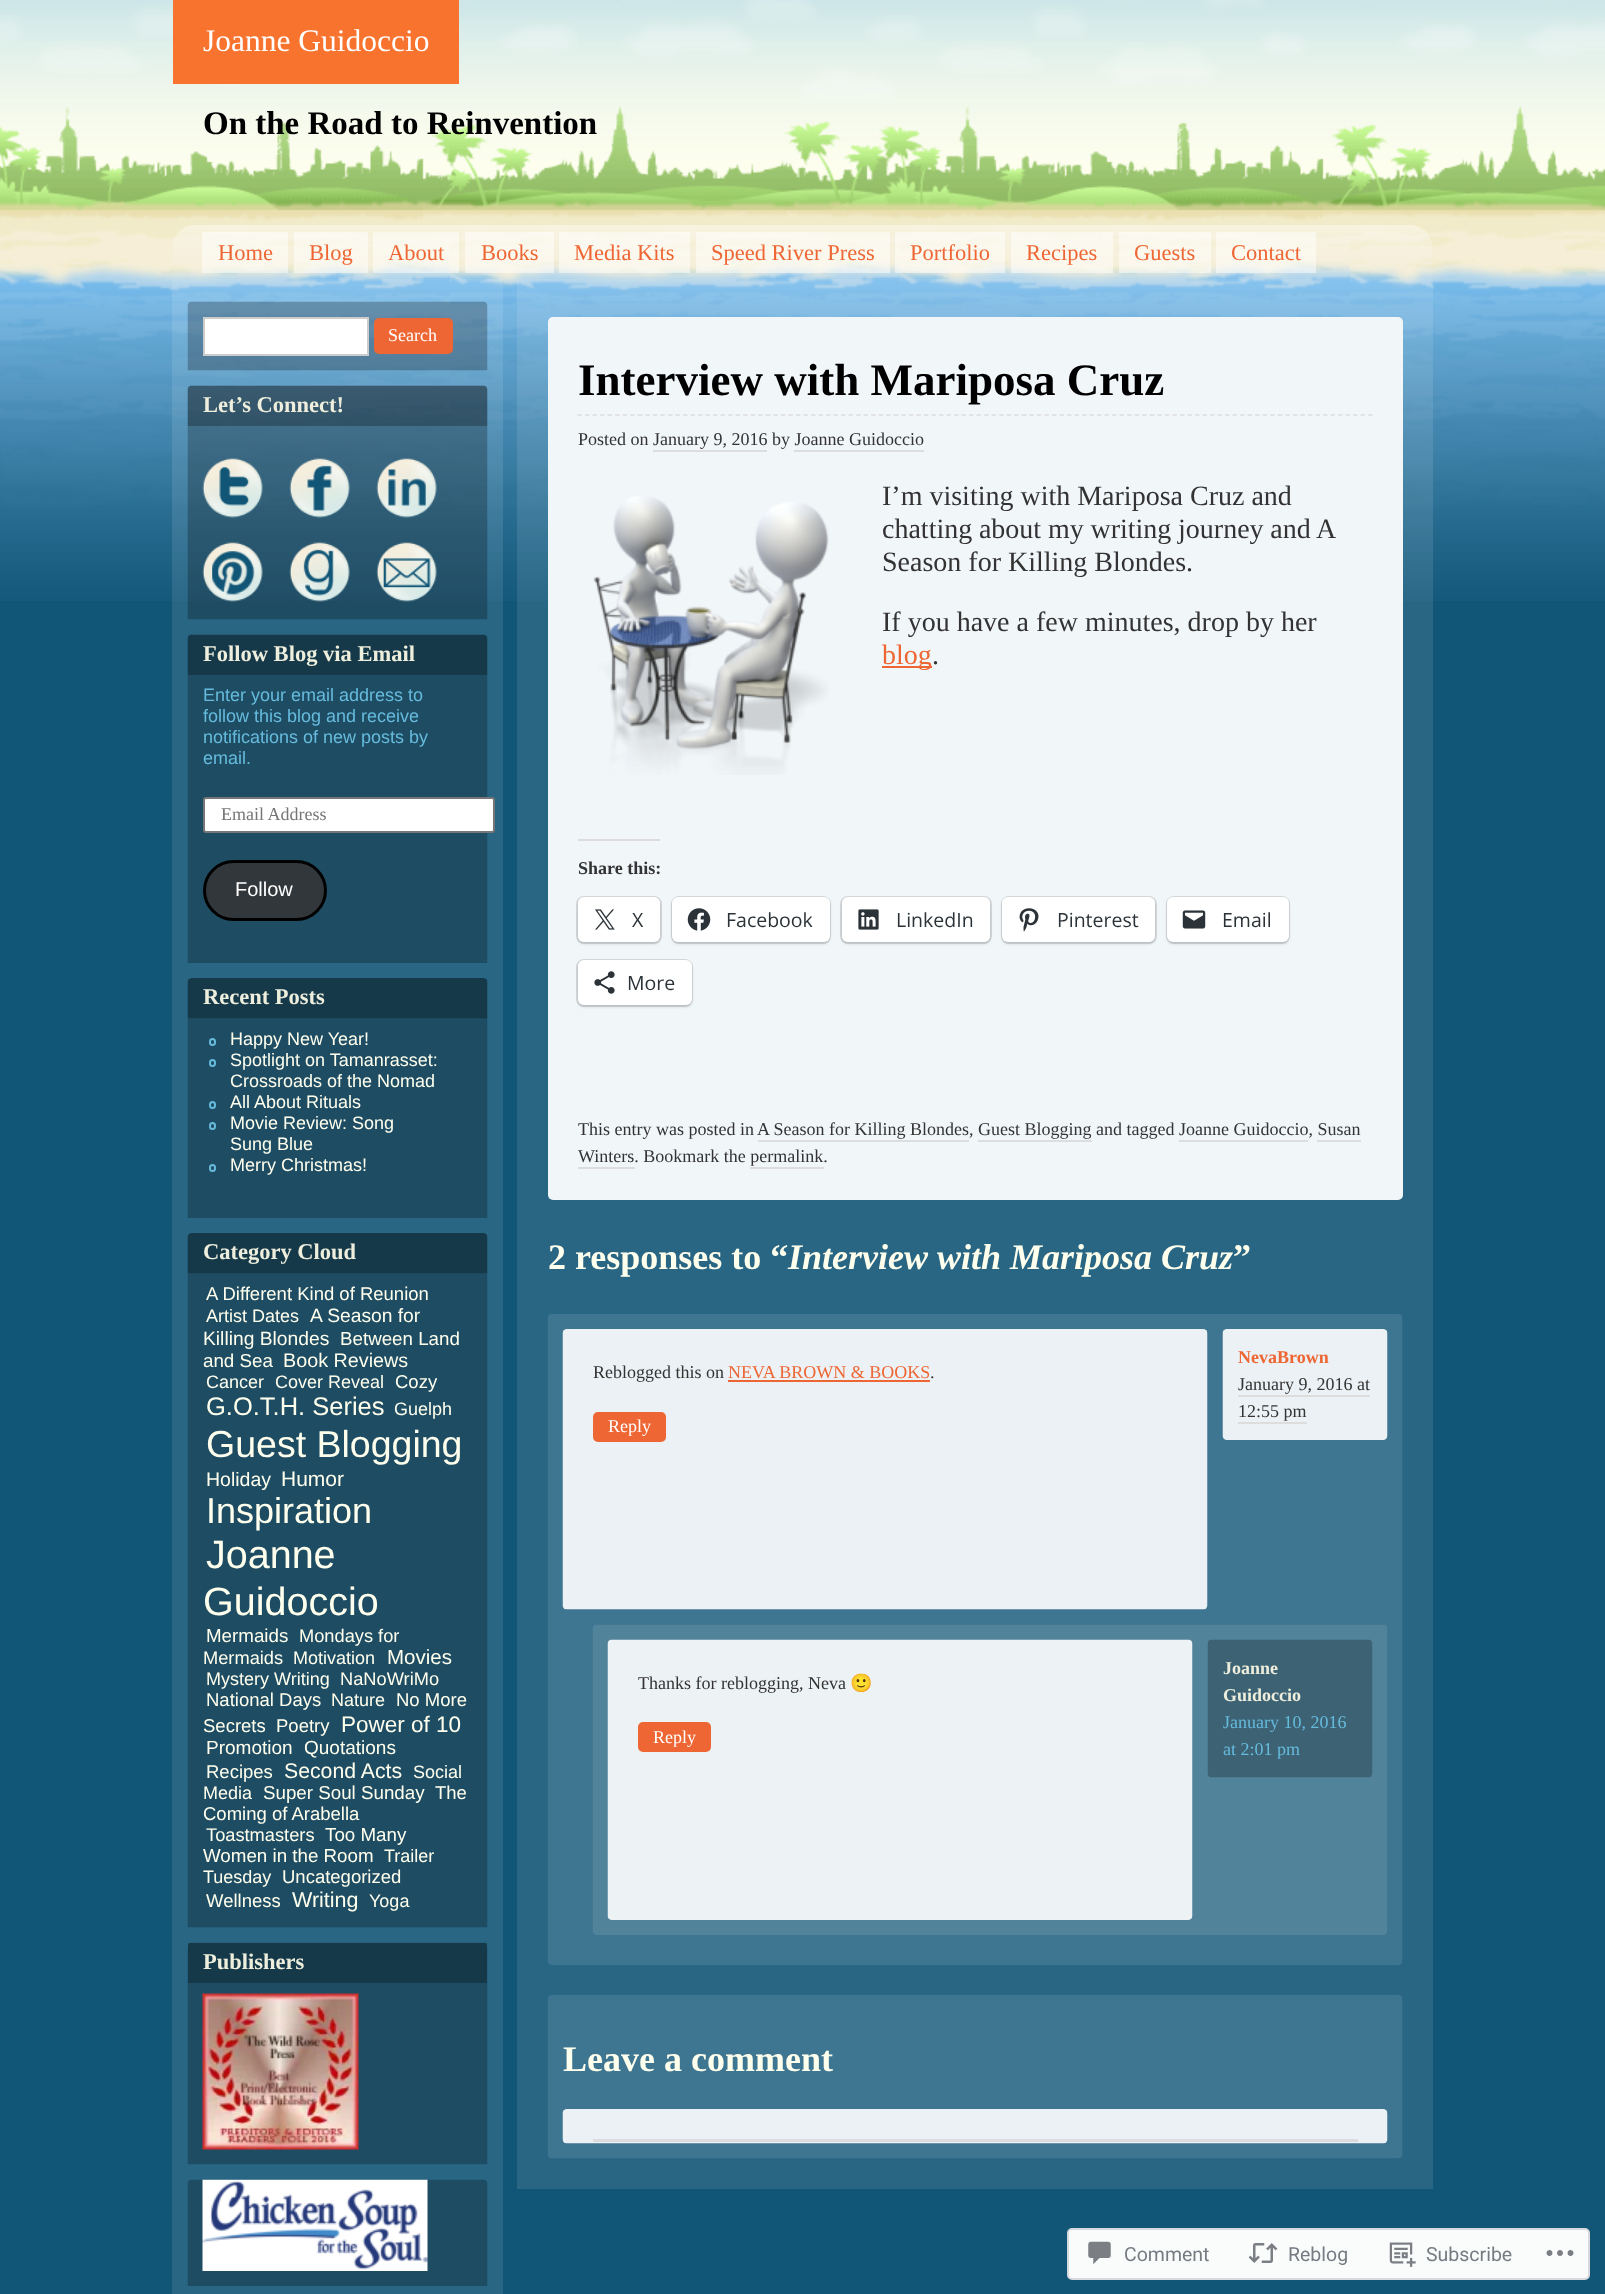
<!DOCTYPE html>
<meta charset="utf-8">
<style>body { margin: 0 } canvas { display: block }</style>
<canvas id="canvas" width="1605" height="2294"></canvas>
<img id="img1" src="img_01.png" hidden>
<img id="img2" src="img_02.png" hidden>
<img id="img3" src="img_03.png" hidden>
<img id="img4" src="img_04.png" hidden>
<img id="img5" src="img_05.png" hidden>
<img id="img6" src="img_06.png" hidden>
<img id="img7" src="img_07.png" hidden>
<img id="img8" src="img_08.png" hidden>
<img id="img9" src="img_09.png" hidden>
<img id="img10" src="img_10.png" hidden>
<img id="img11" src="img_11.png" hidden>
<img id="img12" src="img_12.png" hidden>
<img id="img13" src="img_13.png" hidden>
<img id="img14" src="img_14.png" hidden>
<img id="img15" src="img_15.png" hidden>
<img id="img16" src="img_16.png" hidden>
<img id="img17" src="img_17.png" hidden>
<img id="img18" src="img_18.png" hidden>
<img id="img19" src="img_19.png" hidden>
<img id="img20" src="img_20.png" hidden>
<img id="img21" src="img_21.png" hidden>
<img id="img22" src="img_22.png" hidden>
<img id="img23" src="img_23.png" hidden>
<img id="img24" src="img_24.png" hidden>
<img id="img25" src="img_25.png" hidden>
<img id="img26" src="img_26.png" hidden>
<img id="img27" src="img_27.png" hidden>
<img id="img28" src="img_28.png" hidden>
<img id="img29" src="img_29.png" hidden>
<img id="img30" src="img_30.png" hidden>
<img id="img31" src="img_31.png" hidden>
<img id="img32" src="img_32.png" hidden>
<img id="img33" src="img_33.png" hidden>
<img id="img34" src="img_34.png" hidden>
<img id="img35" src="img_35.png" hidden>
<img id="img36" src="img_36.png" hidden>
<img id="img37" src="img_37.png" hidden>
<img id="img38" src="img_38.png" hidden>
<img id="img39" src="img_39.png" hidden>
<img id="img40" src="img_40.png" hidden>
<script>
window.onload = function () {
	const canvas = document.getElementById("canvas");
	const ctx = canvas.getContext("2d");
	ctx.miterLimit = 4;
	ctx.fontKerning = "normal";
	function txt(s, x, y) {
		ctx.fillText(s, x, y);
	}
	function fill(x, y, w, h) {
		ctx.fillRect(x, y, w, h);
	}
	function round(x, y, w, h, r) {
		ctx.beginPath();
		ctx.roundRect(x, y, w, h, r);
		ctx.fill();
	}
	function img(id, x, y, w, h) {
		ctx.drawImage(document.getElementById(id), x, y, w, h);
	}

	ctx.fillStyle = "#115577";
	fill(0, 0, 1605, 2294);
	img("img1", 0, 0, 1605, 225);
	ctx.fillStyle = "#F7732E";
	fill(173, 0, 286, 84);
	img("img2", 0, 225, 1605, 376);
	img("img3", 173, 225, 1259, 54);
	ctx.fillStyle = "rgba(255, 255, 255, 0.5)";
	fill(202, 232, 86, 41);
	fill(294, 232, 74, 41);
	fill(373, 232, 86, 41);
	fill(465, 232, 89, 41);
	fill(559, 232, 131, 41);
	fill(696, 232, 194, 41);
	fill(895, 232, 110, 41);
	fill(1011, 232, 102, 41);
	fill(1119, 232, 92, 41);
	fill(1216, 232, 100, 41);
	ctx.fillStyle = "rgba(255, 255, 255, 0.1)";
	fill(172, 279, 331, 2015);
	img("img4", 187, 301, 301, 70);
	ctx.fillStyle = "#FFFFFF";
	ctx.beginPath();
	ctx.rect(204, 318, 164, 37);
	ctx.fill();
	ctx.strokeStyle = "#CCCCCC";
	ctx.lineWidth = 2;
	ctx.stroke();
	ctx.fillStyle = "#EE6633";
	round(374, 318, 79, 36, 5);
	img("img5", 187, 385, 301, 235);
	img("img6", 187, 385, 301, 41);
	img("img7", 202, 458, 61, 60);
	img("img8", 289, 458, 61, 60);
	img("img9", 376, 458, 61, 60);
	img("img10", 202, 542, 61, 60);
	img("img11", 289, 542, 61, 60);
	img("img12", 376, 542, 61, 60);
	img("img13", 187, 634, 301, 329);
	img("img14", 187, 634, 301, 41);
	ctx.fillStyle = "#FFFFFF";
	ctx.beginPath();
	ctx.roundRect(204, 798, 290, 34, 2);
	ctx.fill();
	ctx.strokeStyle = "#767676";
	ctx.stroke();
	ctx.fillStyle = "#32373C";
	ctx.beginPath();
	ctx.roundRect(204.5, 861.5, 121, 58, 29);
	ctx.fill();
	ctx.strokeStyle = "#000000";
	ctx.lineWidth = 3;
	ctx.stroke();
	img("img15", 187, 978, 301, 240);
	img("img16", 187, 978, 301, 41);
	ctx.beginPath();
	ctx.roundRect(210, 1039, 5, 6, 2.5);
	ctx.strokeStyle = "#66BBDD";
	ctx.lineWidth = 2;
	ctx.stroke();
	ctx.beginPath();
	ctx.roundRect(210, 1060, 5, 6, 2.5);
	ctx.stroke();
	ctx.beginPath();
	ctx.roundRect(210, 1102, 5, 6, 2.5);
	ctx.stroke();
	ctx.beginPath();
	ctx.roundRect(210, 1123, 5, 6, 2.5);
	ctx.stroke();
	ctx.beginPath();
	ctx.roundRect(210, 1165, 5, 6, 2.5);
	ctx.stroke();
	img("img17", 187, 1233, 301, 695);
	img("img16", 187, 1233, 301, 41);
	img("img18", 187, 1942, 301, 223);
	ctx.fillStyle = "rgba(0, 0, 0, 0.25)";
	fill(188, 1943, 299, 40);
	img("img19", 202, 1993, 157, 157);
	img("img20", 187, 2179, 301, 107);
	img("img21", 202, 2179, 226, 92);
	ctx.fillStyle = "rgba(255, 255, 255, 0.1)";
	fill(517, 279, 916, 1910);
	ctx.fillStyle = "#F1F6F9";
	round(548, 317, 855, 883, 5);
	ctx.beginPath();
	ctx.moveTo(577.5, 415);
	ctx.lineTo(1372.5, 415);
	ctx.strokeStyle = "#DDDDDD";
	ctx.lineWidth = 1.5;
	ctx.setLineDash([4.5, 3.03]);
	ctx.stroke();
	ctx.fillStyle = "#DDDDDD";
	fill(653, 450, 114, 2);
	fill(794, 450, 130, 2);
	img("img22", 593, 495, 236, 280);
	ctx.fillStyle = "#EE6633";
	fill(882, 666, 50, 2);
	ctx.fillStyle = "#DCDCDE";
	fill(578, 839, 82, 2);
	ctx.beginPath();
	ctx.roundRect(577, 897, 84, 46, 7);
	ctx.strokeStyle = "#D4D8DB";
	ctx.lineWidth = 2;
	ctx.setLineDash([]);
	ctx.stroke();
	ctx.fillStyle = "rgba(0, 0, 0, 0.12)";
	ctx.filter = "blur(1.5px)";
	ctx.beginPath();
	ctx.roundRect(578, 899, 82, 45, 6);
	ctx.fill();
	ctx.filter = "none";
	ctx.fillStyle = "#FFFFFF";
	round(578, 897, 82, 45, 6);
	img("img23", 595, 909, 20, 21);
	ctx.beginPath();
	ctx.roundRect(672, 897, 158, 46, 7);
	ctx.stroke();
	ctx.fillStyle = "rgba(0, 0, 0, 0.12)";
	ctx.filter = "blur(1.5px)";
	ctx.beginPath();
	ctx.roundRect(672, 899, 158, 45, 6);
	ctx.fill();
	ctx.filter = "none";
	ctx.fillStyle = "#FFFFFF";
	round(672, 897, 158, 45, 6);
	img("img24", 687, 908, 24, 23);
	ctx.beginPath();
	ctx.roundRect(841, 897, 150, 46, 7);
	ctx.stroke();
	ctx.fillStyle = "rgba(0, 0, 0, 0.12)";
	ctx.filter = "blur(1.5px)";
	ctx.beginPath();
	ctx.roundRect(842, 899, 148, 45, 6);
	ctx.fill();
	ctx.filter = "none";
	ctx.fillStyle = "#FFFFFF";
	round(842, 897, 148, 45, 6);
	img("img25", 858, 909, 21, 21);
	ctx.beginPath();
	ctx.roundRect(1002, 897, 154, 46, 7);
	ctx.stroke();
	ctx.fillStyle = "rgba(0, 0, 0, 0.12)";
	ctx.filter = "blur(1.5px)";
	ctx.beginPath();
	ctx.roundRect(1002, 899, 153, 45, 6);
	ctx.fill();
	ctx.filter = "none";
	ctx.fillStyle = "#FFFFFF";
	round(1002, 897, 153, 45, 6);
	img("img26", 1019, 908, 20, 24);
	ctx.beginPath();
	ctx.roundRect(1167, 897, 122, 46, 7);
	ctx.stroke();
	ctx.fillStyle = "rgba(0, 0, 0, 0.12)";
	ctx.filter = "blur(1.5px)";
	ctx.beginPath();
	ctx.roundRect(1167, 899, 122, 45, 6);
	ctx.fill();
	ctx.filter = "none";
	ctx.fillStyle = "#FFFFFF";
	round(1167, 897, 122, 45, 6);
	img("img27", 1182, 910, 24, 19);
	ctx.beginPath();
	ctx.roundRect(577, 960, 115, 46, 7);
	ctx.stroke();
	ctx.fillStyle = "rgba(0, 0, 0, 0.12)";
	ctx.filter = "blur(1.5px)";
	ctx.beginPath();
	ctx.roundRect(578, 962, 114, 45, 6);
	ctx.fill();
	ctx.filter = "none";
	ctx.fillStyle = "#FFFFFF";
	round(578, 960, 114, 45, 6);
	img("img28", 594, 971, 21, 23);
	ctx.fillStyle = "#DDDDDD";
	fill(758, 1140, 211, 2);
	fill(978, 1140, 114, 2);
	fill(1179, 1140, 129, 2);
	fill(1317, 1140, 44, 2);
	fill(578, 1167, 57, 2);
	fill(750, 1167, 74, 2);
	img("img29", 547, 1314, 856, 651);
	img("img30", 562, 1329, 646, 281);
	ctx.fillStyle = "#EE6633";
	fill(728, 1380, 202, 2);
	round(593, 1412, 73, 30, 5);
	img("img31", 1222, 1329, 166, 111);
	ctx.fillStyle = "#DDDDDD";
	fill(1238, 1395, 132, 2);
	fill(1238, 1422, 69, 2);
	img("img32", 592, 1624, 796, 311);
	img("img33", 607, 1639, 586, 281);
	ctx.fillStyle = "#EE6633";
	round(638, 1722, 73, 30, 5);
	img("img34", 1207, 1639, 166, 139);
	img("img35", 547, 1995, 856, 164);
	img("img36", 562, 2109, 826, 35);
	ctx.fillStyle = "#DCDCDE";
	fill(593, 2139, 765, 3);
	ctx.fillStyle = "#FAFCFC";
	ctx.beginPath();
	ctx.roundRect(1068, 2229, 521, 50, 4);
	ctx.fill();
	ctx.strokeStyle = "#D8D9DC";
	ctx.stroke();
	img("img37", 1088, 2241, 23, 24);
	img("img38", 1248, 2243, 30, 20);
	img("img39", 1389, 2242, 27, 25);
	img("img40", 1546, 2250, 28, 6);
	ctx.font = "31.5px Liberation Serif";
	ctx.fillStyle = "#FFFFFF";
	txt("Joanne Guidoccio", 203, 51);
	ctx.font = "bold 33px Liberation Serif";
	ctx.fillStyle = "#000000";
	txt("On the Road to Reinvention", 203, 134);
	ctx.font = "22.5px Liberation Serif";
	ctx.fillStyle = "#EE6633";
	txt("Home", 218, 260);
	txt("Blog", 309, 260);
	txt("About", 388, 260);
	txt("Books", 481, 260);
	txt("Media Kits", 574, 260);
	txt("Speed River Press", 711, 260);
	txt("Portfolio", 910, 260);
	txt("Recipes", 1026, 260);
	txt("Guests", 1134, 260);
	txt("Contact", 1231, 260);
	ctx.font = "18px Liberation Serif";
	ctx.fillStyle = "#FFFFFF";
	txt("Search", 388, 341);
	ctx.font = "bold 22.5px Liberation Serif";
	ctx.fillStyle = "#EEEEDD";
	txt("Let’s Connect!", 203, 412);
	txt("Follow Blog via Email", 203, 661);
	ctx.font = "18px Liberation Sans";
	ctx.fillStyle = "#66BBDD";
	txt("Enter your email address to", 203, 701);
	txt("follow this blog and receive", 203, 722);
	txt("notifications of new posts by", 203, 743);
	txt("email.", 203, 764);
	ctx.font = "18px Liberation Serif";
	ctx.fillStyle = "#757575";
	txt("Email Address", 221, 820);
	ctx.font = "20px Liberation Sans";
	ctx.fillStyle = "#FFFFFF";
	txt("Follow", 235, 896);
	ctx.font = "bold 22.5px Liberation Serif";
	ctx.fillStyle = "#EEEEDD";
	txt("Recent Posts", 203, 1004);
	ctx.font = "18px Liberation Sans";
	ctx.fillStyle = "#FFFFEE";
	txt("Happy New Year!", 230, 1045);
	txt("Spotlight on Tamanrasset:", 230, 1066);
	txt("Crossroads of the Nomad", 230, 1087);
	txt("All About Rituals", 230, 1108);
	txt("Movie Review: Song", 230, 1129);
	txt("Sung Blue", 230, 1150);
	txt("Merry Christmas!", 230, 1171);
	ctx.font = "bold 22.5px Liberation Serif";
	ctx.fillStyle = "#EEEEDD";
	txt("Category Cloud", 203, 1259);
	ctx.font = "18.5px Liberation Sans";
	ctx.fillStyle = "#FFFFEE";
	txt("A Different Kind of Reunion", 206, 1300);
	ctx.font = "18px Liberation Sans";
	txt("Artist Dates", 206, 1322);
	ctx.font = "19.25px Liberation Sans";
	txt("A Season for", 310, 1322);
	txt("Killing Blondes", 203, 1345);
	ctx.font = "18.75px Liberation Sans";
	txt("Between Land", 340, 1345);
	txt("and Sea", 203, 1367);
	ctx.font = "19.75px Liberation Sans";
	txt("Book Reviews", 283, 1367);
	ctx.font = "18px Liberation Sans";
	txt("Cancer", 206, 1388);
	txt("Cover Reveal", 275, 1388);
	ctx.font = "18.5px Liberation Sans";
	txt("Cozy", 395, 1388);
	ctx.font = "25.5px Liberation Sans";
	txt("G.O.T.H. Series", 206, 1415);
	ctx.font = "18px Liberation Sans";
	txt("Guelph", 394, 1415);
	ctx.font = "37.5px Liberation Sans";
	txt("Guest Blogging", 206, 1457);
	ctx.font = "19.5px Liberation Sans";
	txt("Holiday", 206, 1486);
	ctx.font = "21px Liberation Sans";
	txt("Humor", 281, 1486);
	ctx.font = "36px Liberation Sans";
	txt("Inspiration", 206, 1523);
	ctx.font = "39.5px Liberation Sans";
	txt("Joanne", 206, 1568);
	txt("Guidoccio", 203, 1615);
	ctx.font = "18.75px Liberation Sans";
	txt("Mermaids", 206, 1642);
	ctx.font = "18.25px Liberation Sans";
	txt("Mondays for", 299, 1642);
	txt("Mermaids", 203, 1664);
	ctx.font = "18px Liberation Sans";
	txt("Motivation", 293, 1664);
	ctx.font = "20.5px Liberation Sans";
	txt("Movies", 387, 1664);
	ctx.font = "18px Liberation Sans";
	txt("Mystery Writing", 206, 1685);
	ctx.font = "18.25px Liberation Sans";
	txt("NaNoWriMo", 340, 1685);
	ctx.font = "18.5px Liberation Sans";
	txt("National Days", 206, 1706);
	ctx.font = "18px Liberation Sans";
	txt("Nature", 331, 1706);
	ctx.font = "18.5px Liberation Sans";
	txt("No More", 396, 1706);
	txt("Secrets", 203, 1732);
	txt("Poetry", 276, 1732);
	ctx.font = "22.5px Liberation Sans";
	txt("Power of 10", 341, 1732);
	ctx.font = "19px Liberation Sans";
	txt("Promotion", 206, 1754);
	txt("Quotations", 304, 1754);
	ctx.font = "18.5px Liberation Sans";
	txt("Recipes", 206, 1778);
	ctx.font = "21.25px Liberation Sans";
	txt("Second Acts", 284, 1778);
	ctx.font = "18px Liberation Sans";
	txt("Social", 413, 1778);
	txt("Media", 203, 1799);
	ctx.font = "18.75px Liberation Sans";
	txt("Super Soul Sunday", 263, 1799);
	ctx.font = "18.5px Liberation Sans";
	txt("The", 435, 1799);
	txt("Coming of Arabella", 203, 1820);
	ctx.font = "18.25px Liberation Sans";
	txt("Toastmasters", 206, 1841);
	ctx.font = "18.75px Liberation Sans";
	txt("Too Many", 325, 1841);
	txt("Women in the Room", 203, 1862);
	ctx.font = "18px Liberation Sans";
	txt("Trailer", 384, 1862);
	txt("Tuesday", 203, 1883);
	ctx.font = "18.5px Liberation Sans";
	txt("Uncategorized", 282, 1883);
	txt("Wellness", 206, 1907);
	ctx.font = "21.5px Liberation Sans";
	txt("Writing", 292, 1907);
	ctx.font = "18px Liberation Sans";
	txt("Yoga", 369, 1907);
	ctx.font = "bold 22.5px Liberation Serif";
	ctx.fillStyle = "#EEEEDD";
	txt("Publishers", 203, 1969);
	ctx.font = "bold 45px Liberation Serif";
	ctx.fillStyle = "#000000";
	txt("Interview with Mariposa Cruz", 578, 395);
	ctx.font = "18px Liberation Serif";
	ctx.fillStyle = "#333333";
	txt("Posted on January 9, 2016 by Joanne Guidoccio", 578, 445);
	ctx.font = "28px Liberation Serif";
	txt("I’m visiting with Mariposa Cruz and", 882, 505);
	ctx.wordSpacing = "-0.25px";
	txt("chatting about my writing journey and A", 882, 538);
	ctx.wordSpacing = "0px";
	txt("Season for Killing Blondes.", 882, 571);
	txt("If you have a few minutes, drop by her", 882, 631);
	ctx.fillStyle = "#EE6633";
	txt("blog", 882, 664);
	ctx.fillStyle = "#333333";
	txt(".", 932, 664);
	ctx.font = "bold 18px Liberation Serif";
	txt("Share this:", 578, 874);
	ctx.font = "19.5px Open Sans";
	ctx.fillStyle = "#2C3338";
	txt("X", 632, 927);
	txt("Facebook", 726, 927);
	txt("LinkedIn", 896, 927);
	txt("Pinterest", 1057, 927);
	txt("Email", 1222, 927);
	txt("More", 627, 990);
	ctx.font = "18px Liberation Serif";
	ctx.fillStyle = "#333333";
	txt("This entry was posted in", 578, 1135);
	txt("A Season for Killing Blondes, Guest Blogging and tagged Joanne Guidoccio, Susan", 757, 1135);
	txt("Winters. Bookmark the permalink.", 578, 1162);
	ctx.font = "bold 36px Liberation Serif";
	ctx.fillStyle = "#FFFFEE";
	txt("2 responses to “", 548, 1269);
	ctx.font = "italic bold 36px Liberation Serif";
	txt("Interview with Mariposa Cruz", 788, 1269);
	ctx.font = "bold 36px Liberation Serif";
	txt("”", 1233, 1269);
	ctx.font = "18px Liberation Serif";
	ctx.fillStyle = "#333333";
	txt("Reblogged this on", 593, 1378);
	ctx.fillStyle = "#EE6633";
	txt("NEVA BROWN & BOOKS", 728, 1378);
	ctx.fillStyle = "#333333";
	txt(".", 930, 1378);
	ctx.fillStyle = "#FFFFFF";
	txt("Reply", 608, 1432);
	ctx.font = "bold 18px Liberation Serif";
	ctx.fillStyle = "#EE6633";
	txt("NevaBrown", 1238, 1363);
	ctx.font = "18px Liberation Serif";
	ctx.fillStyle = "#333333";
	txt("January 9, 2016 at", 1238, 1390);
	txt("12:55 pm", 1238, 1417);
	txt("Thanks for reblogging, Neva", 638, 1689);
	ctx.font = "18px Noto Color Emoji";
	txt("🙂", 850, 1689);
	ctx.font = "18px Liberation Serif";
	ctx.fillStyle = "#FFFFFF";
	txt("Reply", 653, 1743);
	ctx.font = "bold 18px Liberation Serif";
	ctx.fillStyle = "#EEEEDD";
	txt("Joanne", 1223, 1674);
	txt("Guidoccio", 1223, 1701);
	ctx.font = "18px Liberation Serif";
	ctx.fillStyle = "#66BBDD";
	txt("January 10, 2016", 1223, 1728);
	txt("at 2:01 pm", 1223, 1755);
	ctx.font = "bold 36px Liberation Serif";
	ctx.fillStyle = "#FFFFEE";
	txt("Leave a comment", 563, 2071);
	ctx.font = "19.5px Roboto";
	ctx.fillStyle = "#767B82";
	txt("Comment", 1124, 2261);
	txt("Reblog", 1288, 2261);
	txt("Subscribe", 1426, 2261);
};
</script>
